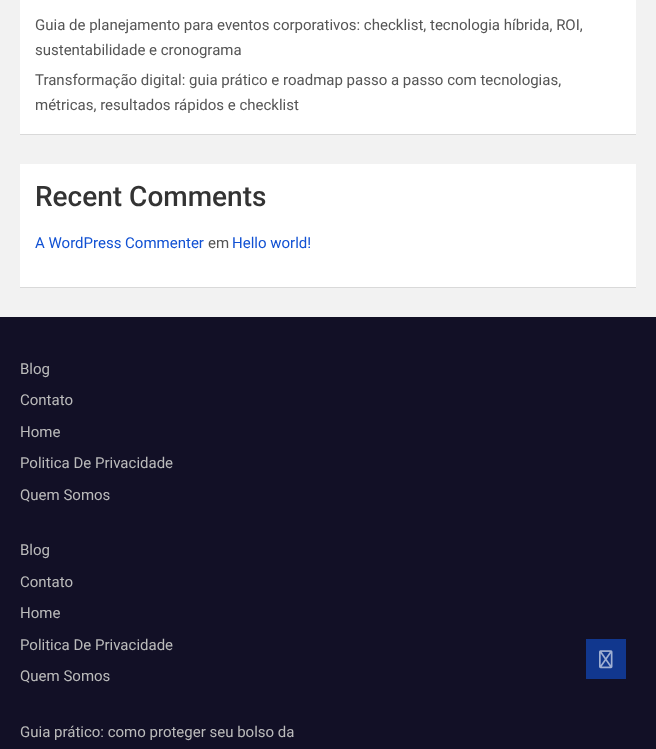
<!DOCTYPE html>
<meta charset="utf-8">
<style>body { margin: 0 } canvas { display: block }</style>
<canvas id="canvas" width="656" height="749"></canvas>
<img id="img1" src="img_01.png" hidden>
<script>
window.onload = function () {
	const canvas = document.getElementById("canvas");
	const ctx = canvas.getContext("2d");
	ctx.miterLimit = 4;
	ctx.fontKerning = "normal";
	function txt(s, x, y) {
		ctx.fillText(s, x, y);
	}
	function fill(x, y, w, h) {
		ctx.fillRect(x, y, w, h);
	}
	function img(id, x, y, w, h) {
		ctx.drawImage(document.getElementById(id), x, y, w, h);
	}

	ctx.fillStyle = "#F2F2F2";
	fill(0, 0, 656, 749);
	ctx.fillStyle = "rgba(0, 0, 0, 0.1)";
	ctx.filter = "blur(0.5px)";
	ctx.beginPath();
	ctx.rect(20, -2, 616, 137);
	ctx.fill();
	ctx.filter = "none";
	ctx.fillStyle = "#FFFFFF";
	fill(20, 0, 616, 134);
	ctx.fillStyle = "rgba(0, 0, 0, 0.1)";
	ctx.filter = "blur(0.5px)";
	ctx.beginPath();
	ctx.rect(20, 165, 616, 123);
	ctx.fill();
	ctx.filter = "none";
	ctx.fillStyle = "#FFFFFF";
	fill(20, 164, 616, 123);
	ctx.fillStyle = "#121026";
	fill(0, 317, 656, 432);
	ctx.fillStyle = "#11378E";
	fill(586, 639, 40, 40);
	img("img1", 599, 650, 14, 19);
	ctx.font = "15px Roboto";
	ctx.fillStyle = "#555555";
	txt("Guia de planejamento para eventos corporativos: checklist, tecnologia híbrida, ROI,", 35, 30);
	txt("sustentabilidade e cronograma", 35, 55);
	txt("Transformação digital: guia prático e roadmap passo a passo com tecnologias,", 35, 85);
	txt("métricas, resultados rápidos e checklist", 35, 110);
	ctx.font = "500 28px Roboto";
	ctx.fillStyle = "#333333";
	txt("Recent Comments", 35, 206);
	ctx.font = "15px Roboto";
	ctx.fillStyle = "#1151D3";
	txt("A WordPress Commenter", 35, 248);
	ctx.fillStyle = "#555555";
	txt("em", 208, 248);
	ctx.fillStyle = "#1151D3";
	txt("Hello world!", 232, 248);
	ctx.fillStyle = "#BBBBBB";
	txt("Blog", 20, 374);
	txt("Contato", 20, 405);
	txt("Home", 20, 437);
	txt("Politica De Privacidade", 20, 468);
	txt("Quem Somos", 20, 500);
	txt("Blog", 20, 555);
	txt("Contato", 20, 587);
	txt("Home", 20, 618);
	txt("Politica De Privacidade", 20, 650);
	txt("Quem Somos", 20, 681);
	txt("Guia prático: como proteger seu bolso da", 20, 737);
};
</script>
